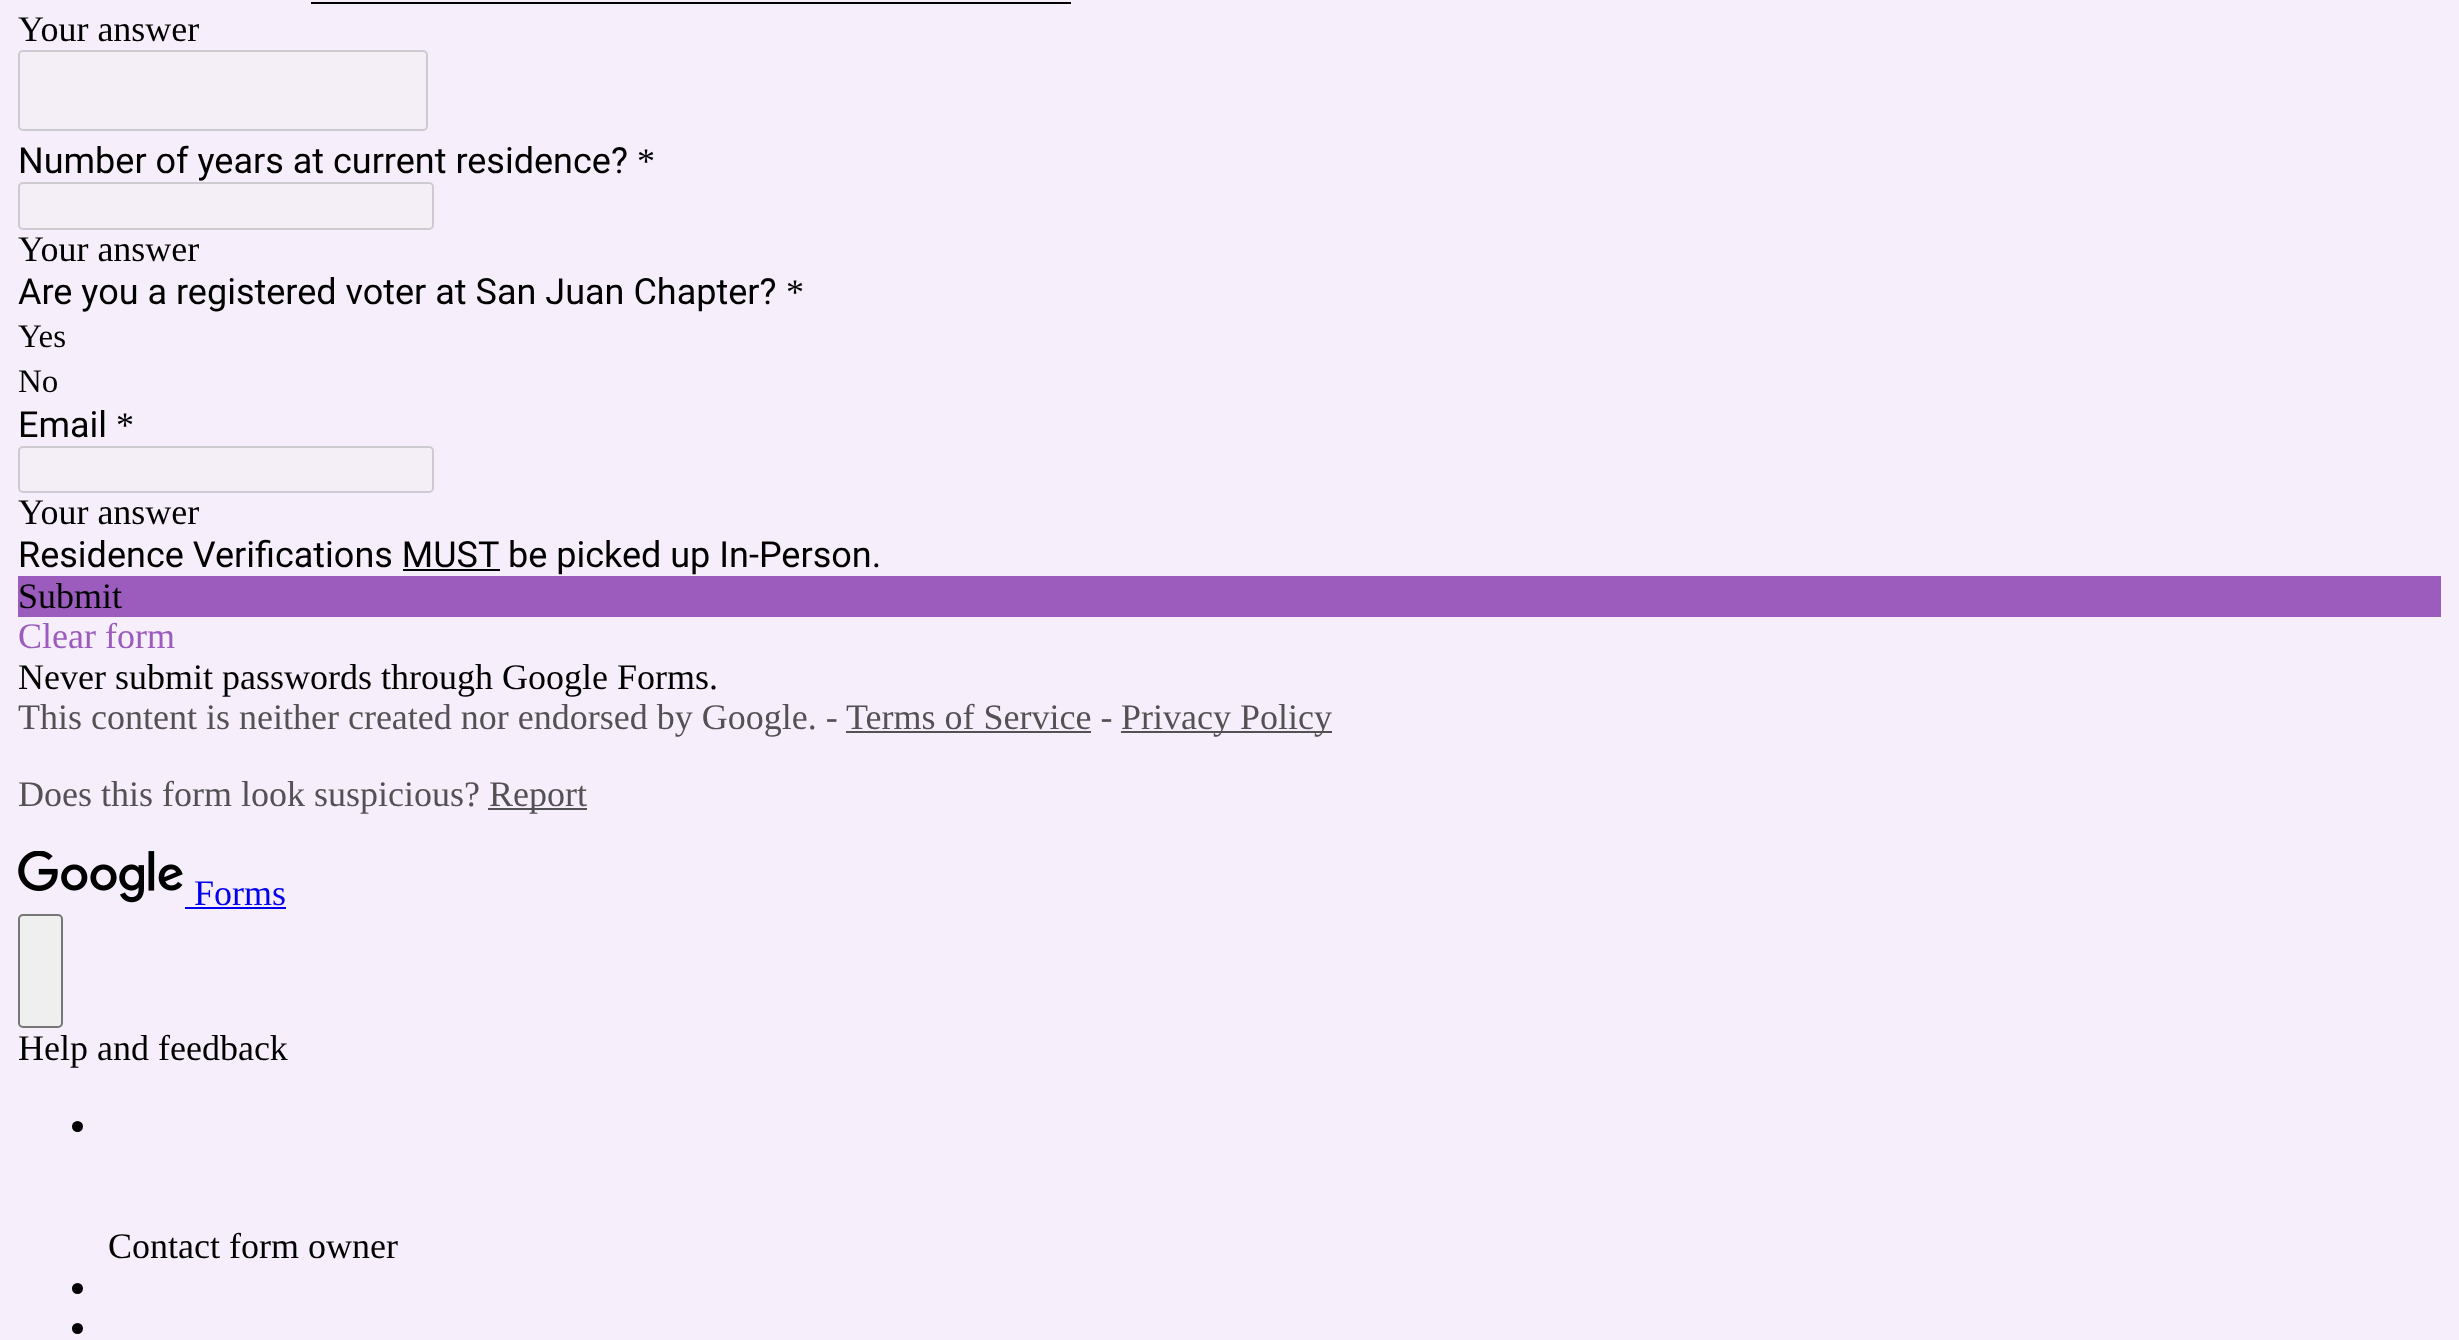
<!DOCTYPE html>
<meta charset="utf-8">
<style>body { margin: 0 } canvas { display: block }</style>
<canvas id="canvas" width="2459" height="1340"></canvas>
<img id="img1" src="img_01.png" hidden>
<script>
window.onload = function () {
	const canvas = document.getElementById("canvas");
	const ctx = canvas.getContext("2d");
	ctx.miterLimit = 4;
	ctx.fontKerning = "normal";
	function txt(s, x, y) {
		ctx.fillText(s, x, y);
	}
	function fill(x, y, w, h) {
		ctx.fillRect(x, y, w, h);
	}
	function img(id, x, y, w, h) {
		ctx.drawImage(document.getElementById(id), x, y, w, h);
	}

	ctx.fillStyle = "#F6EFFB";
	fill(0, 0, 2459, 1340);
	ctx.fillStyle = "#000000";
	fill(311, 2, 760, 2);
	ctx.fillStyle = "#F4EFF7";
	ctx.beginPath();
	ctx.roundRect(19, 51, 408, 79, 4);
	ctx.fill();
	ctx.strokeStyle = "#CECBD0";
	ctx.lineWidth = 2;
	ctx.stroke();
	ctx.beginPath();
	ctx.roundRect(19, 183, 414, 46, 4);
	ctx.fill();
	ctx.stroke();
	ctx.beginPath();
	ctx.roundRect(19, 447, 414, 45, 4);
	ctx.fill();
	ctx.stroke();
	ctx.fillStyle = "#000000";
	fill(403, 569, 97, 2);
	ctx.fillStyle = "#9B5CBE";
	fill(18, 576, 2423, 41);
	ctx.fillStyle = "#545155";
	fill(846, 731, 245, 2);
	fill(1121, 731, 211, 2);
	fill(488, 808, 99, 2);
	img("img1", 18, 851, 165, 52);
	ctx.fillStyle = "#0000EE";
	fill(185, 907, 101, 2);
	ctx.fillStyle = "#EFEFEF";
	ctx.beginPath();
	ctx.roundRect(19, 915, 43, 112, 4);
	ctx.fill();
	ctx.strokeStyle = "#767676";
	ctx.stroke();
	ctx.fillStyle = "#000000";
	ctx.beginPath();
	ctx.arc(77.5, 1126.5, 5.5, 0, Math.PI * 2);
	ctx.fill();
	ctx.beginPath();
	ctx.arc(77.5, 1288.5, 5.5, 0, Math.PI * 2);
	ctx.fill();
	ctx.beginPath();
	ctx.arc(77.5, 1328.5, 5.5, 0, Math.PI * 2);
	ctx.fill();
	ctx.font = "36px Liberation Serif";
	txt("Your answer", 18, 41);
	ctx.font = "36px Roboto";
	txt("Number of years at current residence?", 18, 173);
	ctx.font = "36px Liberation Serif";
	txt("*", 637, 173);
	txt("Your answer", 18, 261);
	ctx.font = "36px Roboto";
	txt("Are you a registered voter at San Juan Chapter?", 18, 304);
	ctx.font = "36px Liberation Serif";
	txt("*", 786, 304);
	ctx.font = "33px Liberation Serif";
	txt("Yes", 18, 347);
	txt("No", 18, 392);
	ctx.font = "36px Roboto";
	txt("Email", 18, 437);
	ctx.font = "36px Liberation Serif";
	txt("*", 116, 437);
	txt("Your answer", 18, 524);
	ctx.font = "36px Roboto";
	txt("Residence Verifications MUST", 18, 567);
	txt("be picked up In-Person.", 508, 567);
	ctx.font = "36px Liberation Serif";
	txt("Submit", 18, 608);
	ctx.fillStyle = "#9B5CBE";
	txt("Clear form", 18, 648);
	ctx.fillStyle = "#000000";
	txt("Never submit passwords through Google Forms.", 18, 689);
	ctx.fillStyle = "#545155";
	txt("This content is neither created nor endorsed by Google. -", 18, 729);
	txt("Terms of Service -", 846, 729);
	txt("Privacy Policy", 1121, 729);
	txt("Does this form look suspicious?", 18, 806);
	txt("Report", 489, 806);
	ctx.fillStyle = "#0000EE";
	txt("Forms", 194, 905);
	ctx.fillStyle = "#000000";
	txt("Help and feedback", 18, 1060);
	txt("Contact form owner", 108, 1258);
};
</script>
